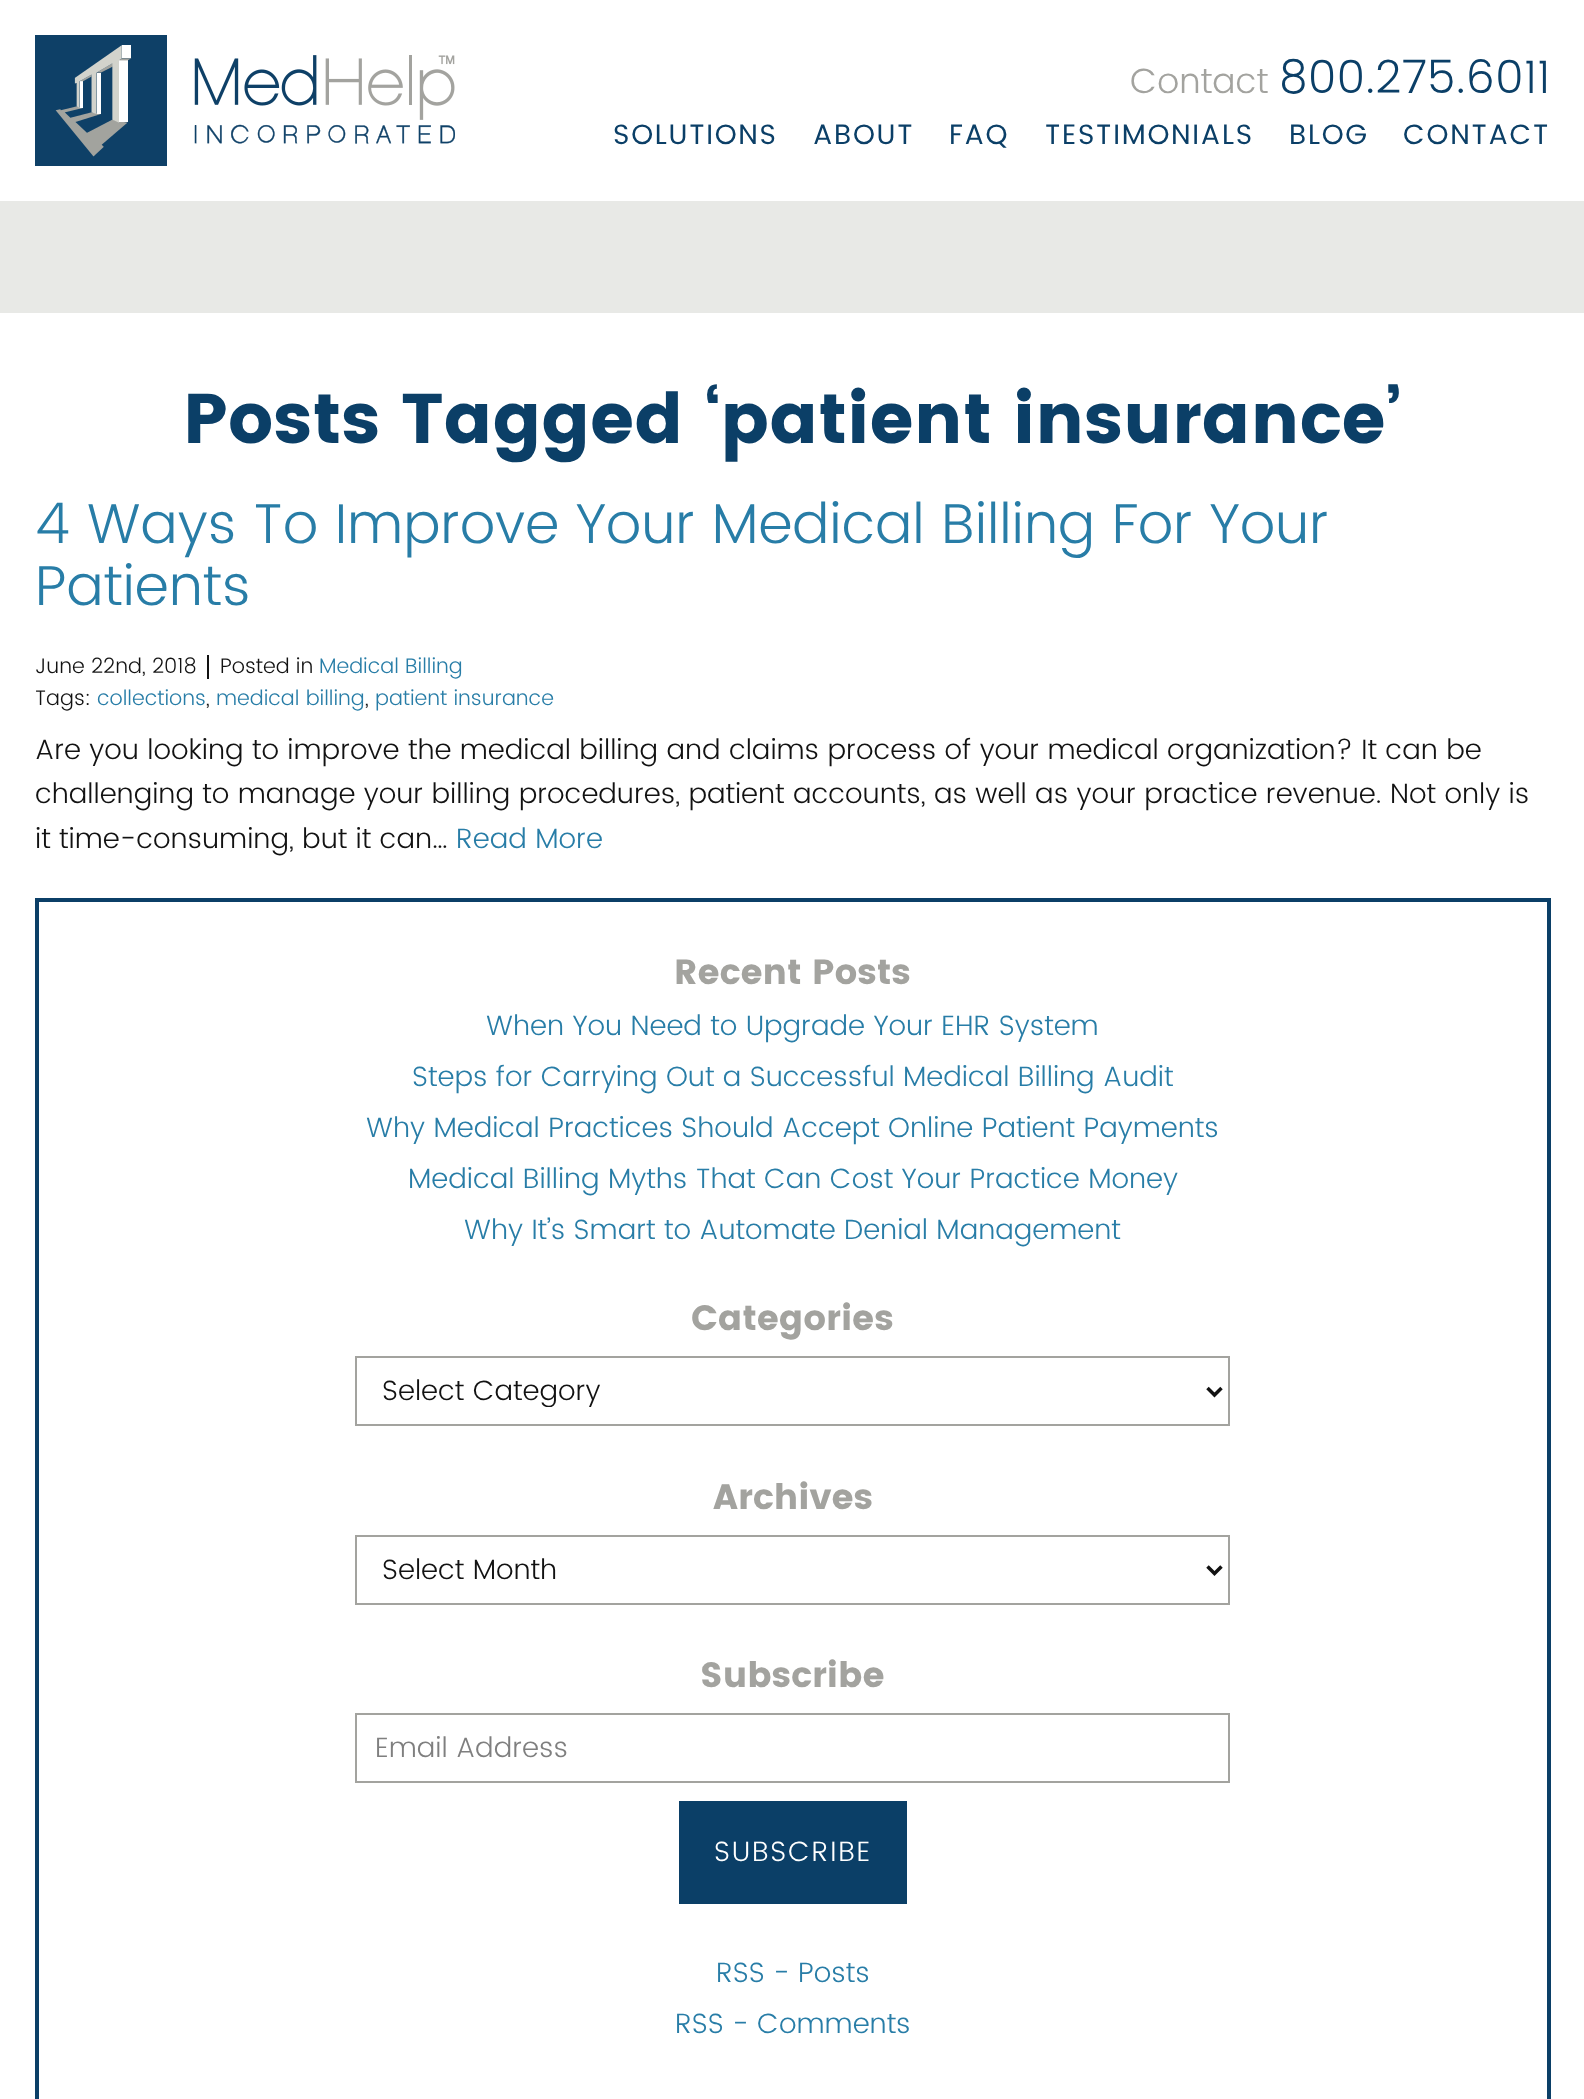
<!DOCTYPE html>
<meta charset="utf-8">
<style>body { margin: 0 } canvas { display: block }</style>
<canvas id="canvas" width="1584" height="2099"></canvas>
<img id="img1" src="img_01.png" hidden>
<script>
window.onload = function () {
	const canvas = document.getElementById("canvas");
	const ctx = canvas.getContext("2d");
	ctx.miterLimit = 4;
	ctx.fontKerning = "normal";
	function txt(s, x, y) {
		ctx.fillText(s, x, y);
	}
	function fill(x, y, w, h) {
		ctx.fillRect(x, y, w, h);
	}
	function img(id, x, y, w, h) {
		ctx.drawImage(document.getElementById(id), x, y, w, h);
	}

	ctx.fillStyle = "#FFFFFF";
	fill(0, 0, 1584, 2099);
	ctx.fillStyle = "#E8E9E6";
	fill(0, 201, 1584, 112);
	img("img1", 35, 35, 420, 131);
	ctx.fillStyle = "#121212";
	fill(207, 655, 2, 24);
	ctx.strokeStyle = "#0B3F67";
	ctx.lineWidth = 4;
	ctx.strokeRect(37, 900, 1512, 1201);
	ctx.strokeStyle = "#A3A39F";
	ctx.lineWidth = 2;
	ctx.strokeRect(356, 1357, 873, 68);
	ctx.beginPath();
	ctx.moveTo(1207.5, 1388);
	ctx.lineTo(1214.5, 1395);
	ctx.lineTo(1221.5, 1388);
	ctx.strokeStyle = "#121212";
	ctx.lineWidth = 3.5;
	ctx.stroke();
	ctx.strokeStyle = "#A3A39F";
	ctx.lineWidth = 2;
	ctx.strokeRect(356, 1536, 873, 68);
	ctx.beginPath();
	ctx.moveTo(1207.5, 1566.5);
	ctx.lineTo(1214.5, 1573.5);
	ctx.lineTo(1221.5, 1566.5);
	ctx.strokeStyle = "#121212";
	ctx.lineWidth = 3.5;
	ctx.stroke();
	ctx.strokeStyle = "#A3A39F";
	ctx.lineWidth = 2;
	ctx.strokeRect(356, 1714, 873, 68);
	ctx.fillStyle = "#0B3F67";
	fill(679, 1801, 228, 103);
	ctx.font = "300 35px Poppins";
	ctx.fillStyle = "#A3A39F";
	txt("Contact", 1130, 93);
	ctx.font = "300 45.5px Poppins";
	ctx.fillStyle = "#0B3F67";
	txt("800.275.6011", 1279, 93);
	ctx.letterSpacing = "1.75px";
	ctx.font = "28px Poppins";
	txt("SOLUTIONS", 613, 144);
	txt("ABOUT", 813, 144);
	txt("FAQ", 949, 144);
	txt("TESTIMONIALS", 1045, 144);
	txt("BLOG", 1289, 144);
	txt("CONTACT", 1403, 144);
	ctx.letterSpacing = "0px";
	ctx.font = "bold 70px Poppins";
	txt("Posts Tagged ‘patient insurance’", 183, 443);
	ctx.font = "300 56px Poppins";
	ctx.fillStyle = "#287DA7";
	txt("4 Ways To Improve Your Medical Billing For Your", 35, 543);
	txt("Patients", 35, 605);
	ctx.font = "300 21px Poppins";
	ctx.fillStyle = "#121212";
	txt("June 22nd, 2018", 35, 673);
	txt("Posted in", 220, 673);
	ctx.fillStyle = "#287DA7";
	txt("Medical Billing", 319, 673);
	ctx.fillStyle = "#121212";
	txt("Tags:", 35, 705);
	ctx.fillStyle = "#287DA7";
	txt("collections", 97, 705);
	ctx.fillStyle = "#121212";
	txt(",", 206, 705);
	ctx.fillStyle = "#287DA7";
	txt("medical billing", 216, 705);
	ctx.fillStyle = "#121212";
	txt(",", 365, 705);
	ctx.fillStyle = "#287DA7";
	txt("patient insurance", 375, 705);
	ctx.font = "300 28px Poppins";
	ctx.fillStyle = "#121212";
	txt("Are you looking to improve the medical billing and claims process of your medical organization? It can be", 35, 759);
	txt("challenging to manage your billing procedures, patient accounts, as well as your practice revenue. Not only is", 35, 803);
	txt("it time-consuming, but it can…", 35, 848);
	ctx.fillStyle = "#287DA7";
	txt("Read More", 456, 848);
	ctx.font = "bold 35px Poppins";
	ctx.fillStyle = "#A3A39F";
	txt("Recent Posts", 674, 984);
	ctx.font = "300 28px Poppins";
	ctx.fillStyle = "#287DA7";
	txt("When You Need to Upgrade Your EHR System", 486, 1035);
	txt("Steps for Carrying Out a Successful Medical Billing Audit", 412, 1086);
	txt("Why Medical Practices Should Accept Online Patient Payments", 366, 1137);
	txt("Medical Billing Myths That Can Cost Your Practice Money", 408, 1188);
	txt("Why It’s Smart to Automate Denial Management", 464, 1239);
	ctx.font = "bold 35px Poppins";
	ctx.fillStyle = "#A3A39F";
	txt("Categories", 691, 1330);
	ctx.save();
	ctx.beginPath();
	ctx.rect(382, 1376, 801, 31);
	ctx.clip();
	ctx.font = "300 28px Poppins";
	ctx.fillStyle = "#121212";
	txt("Select Category", 382, 1400);
	ctx.restore();
	txt("Archives", 713, 1509);
	ctx.font = "300 28px Poppins";
	ctx.fillStyle = "#121212";
	txt("Select Month", 382, 1579);
	ctx.font = "bold 35px Poppins";
	ctx.fillStyle = "#A3A39F";
	txt("Subscribe", 700, 1687);
	ctx.font = "300 28px Poppins";
	ctx.fillStyle = "#7F7F7F";
	txt("Email Address", 375, 1757);
	ctx.letterSpacing = "1.75px";
	ctx.fillStyle = "#FFFFFF";
	txt("SUBSCRIBE", 714, 1861);
	ctx.letterSpacing = "0px";
	ctx.fillStyle = "#287DA7";
	txt("RSS - Posts", 716, 1982);
	txt("RSS - Comments", 675, 2033);
};
</script>
